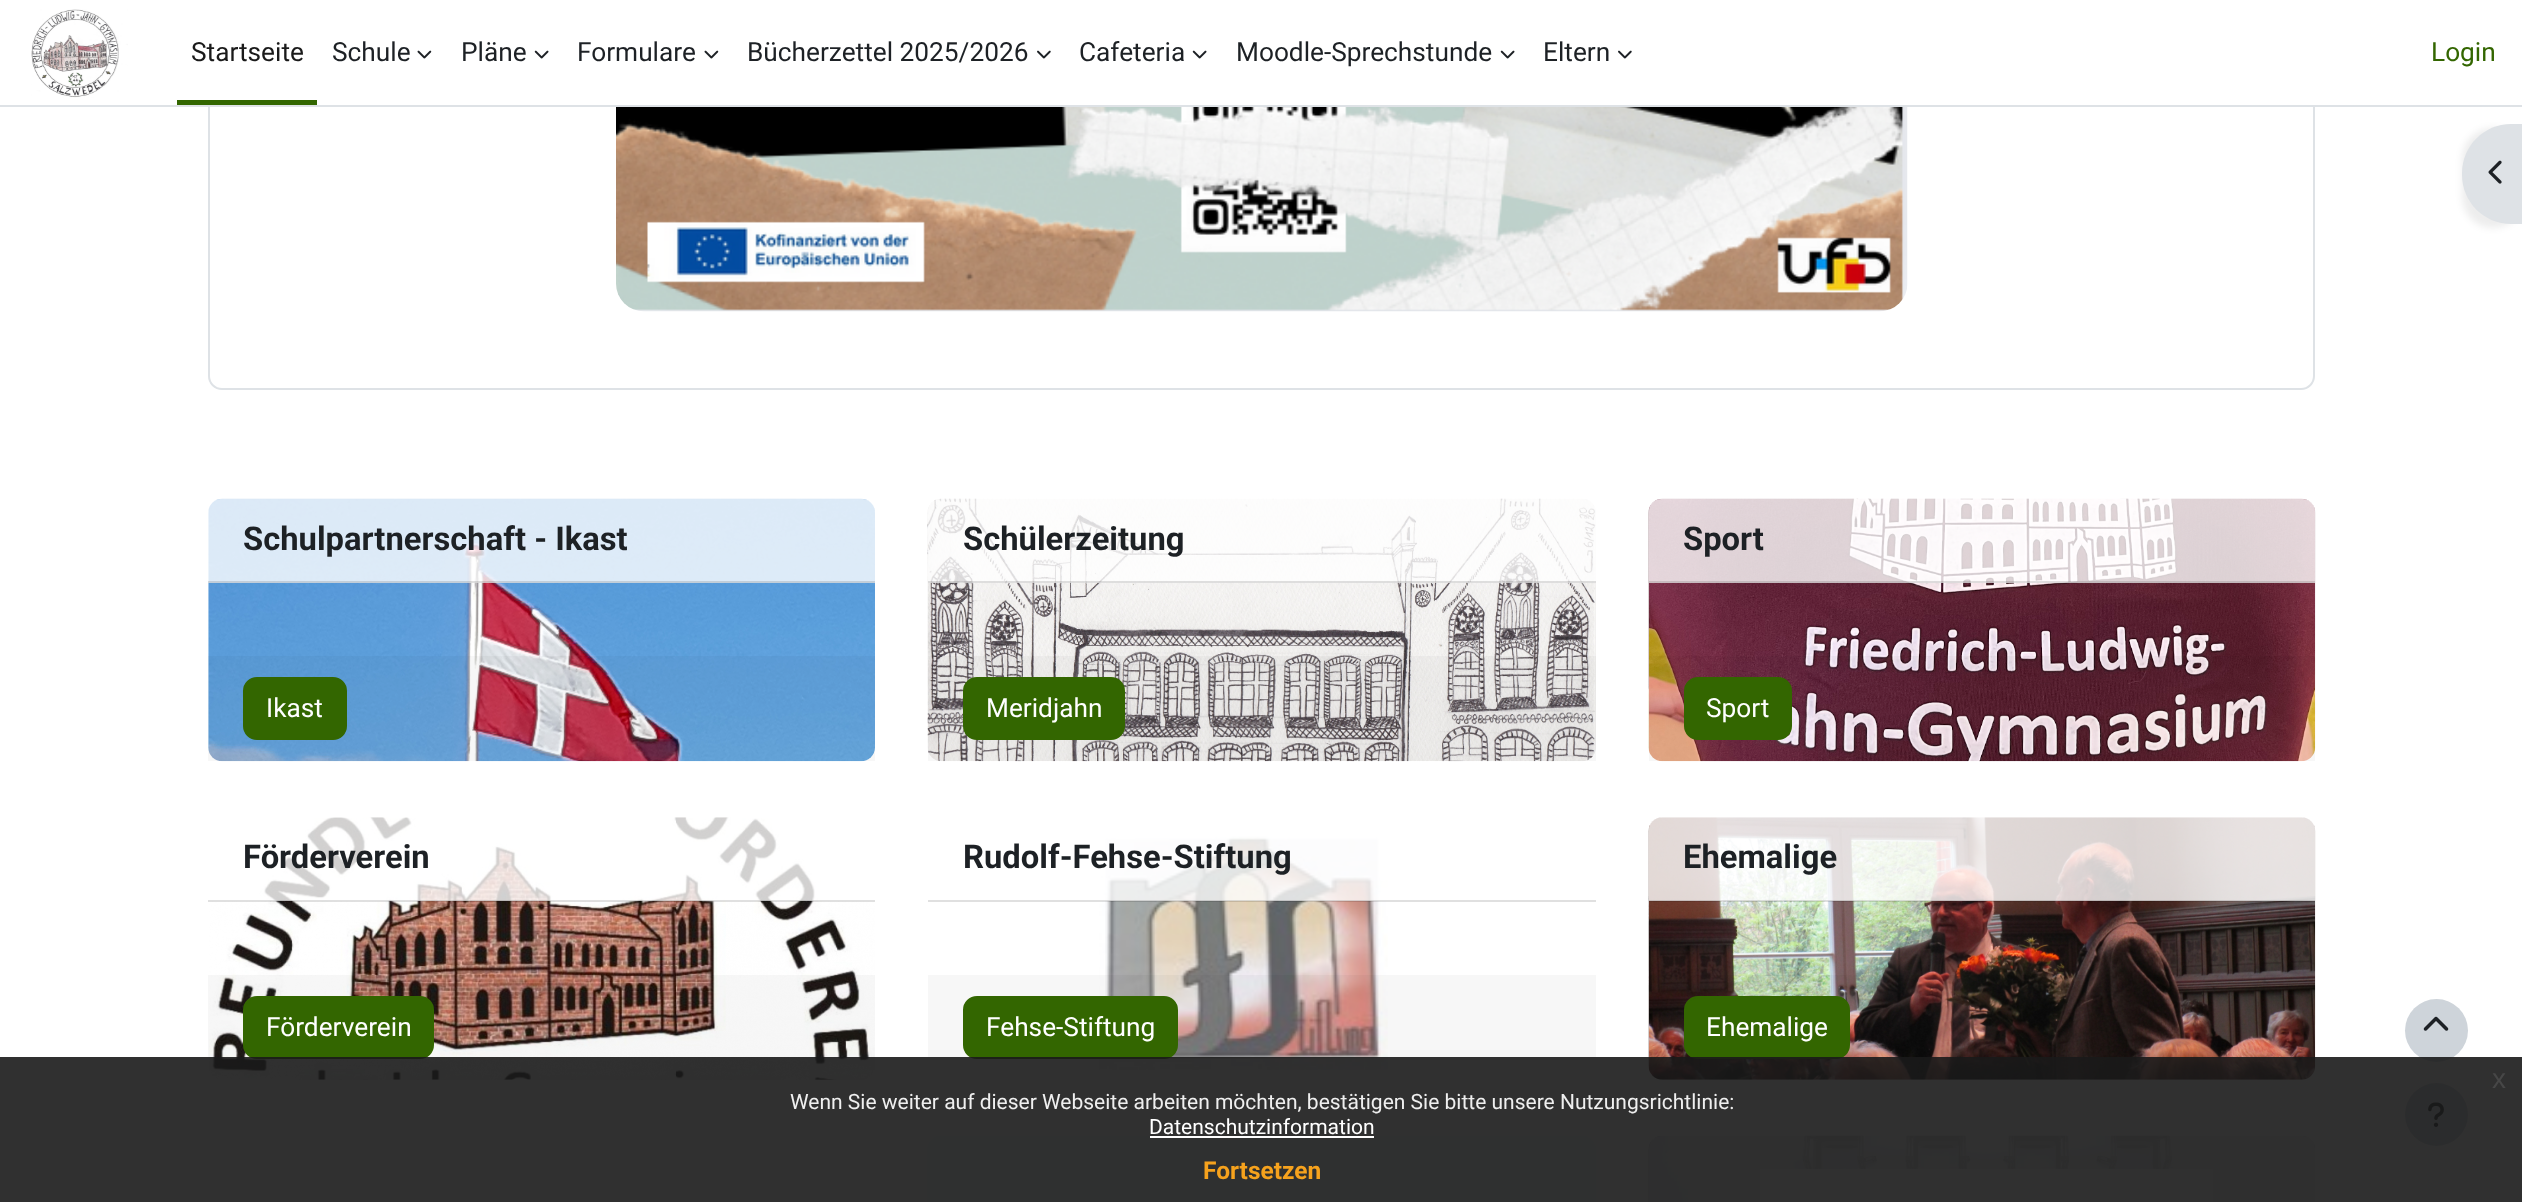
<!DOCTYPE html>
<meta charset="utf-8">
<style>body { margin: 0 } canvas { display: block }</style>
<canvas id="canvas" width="2522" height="1202"></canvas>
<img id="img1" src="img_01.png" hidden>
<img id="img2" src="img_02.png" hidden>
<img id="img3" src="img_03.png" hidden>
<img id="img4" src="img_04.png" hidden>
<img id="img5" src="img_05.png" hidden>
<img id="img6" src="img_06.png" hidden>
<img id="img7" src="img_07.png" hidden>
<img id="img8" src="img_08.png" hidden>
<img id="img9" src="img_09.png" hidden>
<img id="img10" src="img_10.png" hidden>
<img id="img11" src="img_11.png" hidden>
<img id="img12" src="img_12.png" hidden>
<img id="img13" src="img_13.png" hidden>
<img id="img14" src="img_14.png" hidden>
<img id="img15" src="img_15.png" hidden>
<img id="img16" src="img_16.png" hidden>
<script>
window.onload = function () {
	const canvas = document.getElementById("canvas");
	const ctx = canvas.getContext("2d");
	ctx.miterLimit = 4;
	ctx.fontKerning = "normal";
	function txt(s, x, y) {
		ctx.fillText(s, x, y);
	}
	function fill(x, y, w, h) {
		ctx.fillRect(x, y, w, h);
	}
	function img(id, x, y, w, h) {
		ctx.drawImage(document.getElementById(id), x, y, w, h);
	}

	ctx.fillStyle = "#FFFFFF";
	fill(0, 0, 2522, 1202);
	ctx.beginPath();
	ctx.roundRect(209, -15, 2105, 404, 13);
	ctx.strokeStyle = "#DEE2E6";
	ctx.lineWidth = 2;
	ctx.stroke();
	fill(208, 0, 2107, 105);
	ctx.fillStyle = "#DEE2E6";
	fill(0, 105, 2522, 2);
	img("img1", 31, 9, 97, 89);
	ctx.fillStyle = "#336600";
	fill(177, 100, 140, 5);
	img("img2", 417, 50, 15, 9);
	img("img3", 534, 50, 15, 9);
	img("img2", 704, 50, 15, 9);
	img("img4", 1037, 50, 14, 9);
	img("img3", 1192, 50, 15, 9);
	img("img3", 1500, 50, 15, 9);
	img("img4", 1618, 50, 14, 9);
	ctx.fillStyle = "rgba(0, 0, 0, 0.07)";
	ctx.filter = "blur(3.5px)";
	ctx.beginPath();
	ctx.roundRect(2462, 128, 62, 100, 49);
	ctx.fill();
	ctx.filter = "none";
	ctx.fillStyle = "#DEE2E6";
	ctx.beginPath();
	ctx.moveTo(2511, 124);
	ctx.lineTo(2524, 124);
	ctx.lineTo(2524, 224);
	ctx.lineTo(2511, 224);
	ctx.bezierCurveTo(2484, 224, 2462, 202, 2462, 175);
	ctx.lineTo(2462, 173);
	ctx.bezierCurveTo(2462, 146, 2484, 124, 2511, 124);
	ctx.closePath();
	ctx.fill();
	img("img5", 2488, 160, 14, 24);
	img("img6", 616, 107, 1292, 205);
	img("img7", 208, 498, 667, 264);
	ctx.fillStyle = "rgba(255, 255, 255, 0.8)";
	ctx.beginPath();
	ctx.roundRect(208, 499, 667, 84, [12, 12, 0, 0]);
	ctx.fill();
	ctx.fillStyle = "rgba(0, 0, 0, 0.12)";
	fill(208, 581, 667, 2);
	ctx.fillStyle = "rgba(0, 0, 0, 0.03)";
	fill(208, 656, 667, 105);
	ctx.fillStyle = "#336600";
	ctx.beginPath();
	ctx.roundRect(244, 678, 102, 61, 13);
	ctx.fill();
	ctx.strokeStyle = "#336600";
	ctx.stroke();
	img("img8", 927, 498, 669, 264);
	ctx.fillStyle = "rgba(255, 255, 255, 0.8)";
	ctx.beginPath();
	ctx.roundRect(928, 499, 668, 84, [12, 12, 0, 0]);
	ctx.fill();
	ctx.fillStyle = "rgba(0, 0, 0, 0.12)";
	fill(928, 581, 668, 2);
	ctx.fillStyle = "rgba(0, 0, 0, 0.03)";
	fill(928, 656, 668, 105);
	ctx.fillStyle = "#336600";
	ctx.beginPath();
	ctx.roundRect(964, 678, 160, 61, 13);
	ctx.fill();
	ctx.stroke();
	img("img9", 1648, 498, 668, 264);
	ctx.fillStyle = "rgba(255, 255, 255, 0.8)";
	ctx.beginPath();
	ctx.roundRect(1649, 499, 666, 84, [12, 12, 0, 0]);
	ctx.fill();
	ctx.fillStyle = "rgba(0, 0, 0, 0.12)";
	fill(1649, 581, 666, 2);
	ctx.fillStyle = "rgba(0, 0, 0, 0.03)";
	fill(1649, 656, 666, 105);
	ctx.fillStyle = "#336600";
	ctx.beginPath();
	ctx.roundRect(1685, 678, 106, 61, 13);
	ctx.fill();
	ctx.stroke();
	img("img10", 209, 817, 666, 263);
	ctx.fillStyle = "rgba(255, 255, 255, 0.8)";
	ctx.beginPath();
	ctx.roundRect(208, 817, 667, 84, [12, 12, 0, 0]);
	ctx.fill();
	ctx.fillStyle = "rgba(0, 0, 0, 0.12)";
	fill(208, 900, 667, 2);
	ctx.fillStyle = "rgba(0, 0, 0, 0.03)";
	fill(208, 975, 667, 105);
	ctx.fillStyle = "#336600";
	ctx.beginPath();
	ctx.roundRect(244, 997, 189, 61, 13);
	ctx.fill();
	ctx.stroke();
	img("img11", 1099, 836, 289, 234);
	ctx.fillStyle = "rgba(255, 255, 255, 0.8)";
	ctx.beginPath();
	ctx.roundRect(928, 817, 668, 84, [12, 12, 0, 0]);
	ctx.fill();
	ctx.fillStyle = "rgba(0, 0, 0, 0.12)";
	fill(928, 900, 668, 2);
	ctx.fillStyle = "rgba(0, 0, 0, 0.03)";
	fill(928, 975, 668, 105);
	ctx.fillStyle = "#336600";
	ctx.beginPath();
	ctx.roundRect(964, 997, 213, 61, 13);
	ctx.fill();
	ctx.stroke();
	img("img12", 1648, 817, 668, 263);
	ctx.fillStyle = "rgba(255, 255, 255, 0.8)";
	ctx.beginPath();
	ctx.roundRect(1649, 817, 666, 84, [12, 12, 0, 0]);
	ctx.fill();
	ctx.fillStyle = "rgba(0, 0, 0, 0.12)";
	fill(1649, 900, 666, 2);
	ctx.fillStyle = "rgba(0, 0, 0, 0.03)";
	fill(1649, 975, 666, 105);
	ctx.fillStyle = "#336600";
	ctx.beginPath();
	ctx.roundRect(1685, 997, 164, 61, 13);
	ctx.fill();
	ctx.stroke();
	img("img13", 927, 1136, 669, 66);
	ctx.fillStyle = "rgba(255, 255, 255, 0.8)";
	ctx.beginPath();
	ctx.moveTo(940, 1136);
	ctx.lineTo(1584, 1136);
	ctx.bezierCurveTo(1590.5, 1136, 1596, 1141.5, 1596, 1148);
	ctx.lineTo(1596, 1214);
	ctx.lineTo(928, 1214);
	ctx.lineTo(928, 1148);
	ctx.bezierCurveTo(928, 1141.5, 933.5, 1136, 940, 1136);
	ctx.closePath();
	ctx.fill();
	img("img14", 1648, 1135, 668, 67);
	ctx.beginPath();
	ctx.moveTo(1661, 1136);
	ctx.lineTo(2303, 1136);
	ctx.bezierCurveTo(2309.5, 1136, 2315, 1141.5, 2315, 1148);
	ctx.lineTo(2315, 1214);
	ctx.lineTo(1649, 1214);
	ctx.lineTo(1649, 1148);
	ctx.bezierCurveTo(1649, 1141.5, 1654.5, 1136, 1661, 1136);
	ctx.closePath();
	ctx.fill();
	ctx.fillStyle = "#CED4DA";
	ctx.beginPath();
	ctx.arc(2436.5, 1030.5, 31.5, 0, Math.PI * 2);
	ctx.fill();
	img("img15", 2423, 1016, 26, 15);
	ctx.beginPath();
	ctx.arc(2436.5, 1114.5, 31.5, 0, Math.PI * 2);
	ctx.fill();
	img("img16", 2428, 1102, 16, 25);
	ctx.fillStyle = "rgba(25, 25, 25, 0.9)";
	fill(0, 1057, 2522, 145);
	ctx.fillStyle = "#FFFFFF";
	fill(1150, 1136, 224, 2);
	ctx.font = "26.25px Roboto";
	ctx.fillStyle = "#1A1A1A";
	txt("Startseite", 191, 61);
	ctx.fillStyle = "#1D2125";
	txt("Schule", 332, 61);
	txt("Pläne", 461, 61);
	txt("Formulare", 577, 61);
	txt("Bücherzettel 2025/2026", 747, 61);
	txt("Cafeteria", 1079, 61);
	txt("Moodle-Sprechstunde", 1236, 61);
	txt("Eltern", 1543, 61);
	ctx.fillStyle = "#336600";
	txt("Login", 2431, 61);
	ctx.font = "bold 32.75px Roboto";
	ctx.fillStyle = "#1D2125";
	txt("Schulpartnerschaft - Ikast", 243, 550);
	ctx.font = "26.25px Roboto";
	ctx.fillStyle = "#FFFFFF";
	txt("Ikast", 266, 717);
	ctx.font = "bold 32.75px Roboto";
	ctx.fillStyle = "#1D2125";
	txt("Schülerzeitung", 963, 550);
	ctx.font = "26.25px Roboto";
	ctx.fillStyle = "#FFFFFF";
	txt("Meridjahn", 986, 717);
	ctx.font = "bold 32.75px Roboto";
	ctx.fillStyle = "#1D2125";
	txt("Sport", 1683, 550);
	ctx.font = "26.25px Roboto";
	ctx.fillStyle = "#FFFFFF";
	txt("Sport", 1706, 717);
	ctx.font = "bold 32.75px Roboto";
	ctx.fillStyle = "#1D2125";
	txt("Förderverein", 243, 868);
	ctx.font = "26.25px Roboto";
	ctx.fillStyle = "#FFFFFF";
	txt("Förderverein", 266, 1036);
	ctx.font = "bold 32.75px Roboto";
	ctx.fillStyle = "#1D2125";
	txt("Rudolf-Fehse-Stiftung", 963, 868);
	ctx.font = "26.25px Roboto";
	ctx.fillStyle = "#FFFFFF";
	txt("Fehse-Stiftung", 986, 1036);
	ctx.font = "bold 32.75px Roboto";
	ctx.fillStyle = "#1D2125";
	txt("Ehemalige", 1683, 868);
	ctx.font = "26.25px Roboto";
	ctx.fillStyle = "#FFFFFF";
	txt("Ehemalige", 1706, 1036);
	ctx.font = "28px Liberation Sans";
	ctx.fillStyle = "#474747";
	txt("x", 2492, 1088);
	ctx.font = "21px Roboto";
	ctx.fillStyle = "#EFEFEF";
	txt("Wenn Sie weiter auf dieser Webseite arbeiten möchten, bestätigen Sie bitte unsere Nutzungsrichtlinie:", 790, 1109);
	ctx.fillStyle = "#FFFFFF";
	txt("Datenschutzinformation", 1149, 1134);
	ctx.font = "bold 24.5px Roboto";
	ctx.fillStyle = "#F6A21D";
	txt("Fortsetzen", 1203, 1179);
};
</script>
